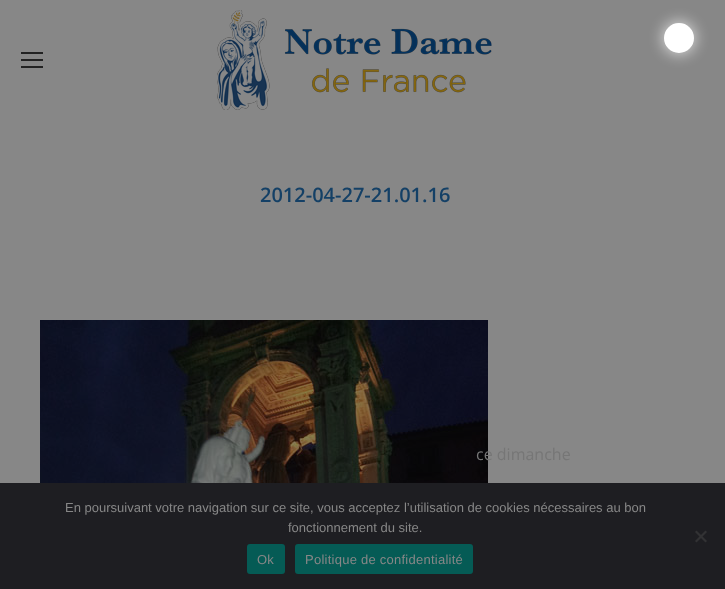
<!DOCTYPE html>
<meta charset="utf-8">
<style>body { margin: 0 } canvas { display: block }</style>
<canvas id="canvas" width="725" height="589"></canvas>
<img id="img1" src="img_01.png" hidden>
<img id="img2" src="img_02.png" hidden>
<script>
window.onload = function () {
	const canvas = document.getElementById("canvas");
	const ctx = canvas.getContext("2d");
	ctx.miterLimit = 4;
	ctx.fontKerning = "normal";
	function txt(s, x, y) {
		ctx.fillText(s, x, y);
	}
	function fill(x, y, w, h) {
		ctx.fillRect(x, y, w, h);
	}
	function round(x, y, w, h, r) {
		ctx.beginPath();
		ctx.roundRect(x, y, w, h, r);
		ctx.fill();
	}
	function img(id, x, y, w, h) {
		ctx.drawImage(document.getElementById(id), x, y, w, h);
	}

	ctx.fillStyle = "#878787";
	fill(0, 0, 725, 589);
	ctx.fillStyle = "#222222";
	fill(21, 52, 22, 2);
	fill(21, 59, 22, 2);
	fill(21, 66, 22, 2);
	img("img1", 217, 10, 275, 100);
	img("img2", 40, 320, 448, 163);
	ctx.fillStyle = "rgba(255, 255, 255, 0.75)";
	ctx.filter = "blur(7.5px)";
	ctx.beginPath();
	ctx.roundRect(663, 22, 32, 32, 16);
	ctx.fill();
	ctx.filter = "none";
	ctx.fillStyle = "#FFFFFF";
	ctx.beginPath();
	ctx.arc(679, 38, 14, 0, Math.PI * 2);
	ctx.fill();
	ctx.strokeStyle = "#FFFFFF";
	ctx.lineWidth = 2;
	ctx.stroke();
	ctx.fillStyle = "#1E1E22";
	fill(0, 483, 725, 106);
	ctx.fillStyle = "#323234";
	ctx.beginPath();
	ctx.moveTo(705.5, 530.5);
	ctx.lineTo(707, 532);
	ctx.lineTo(696.5, 542.5);
	ctx.lineTo(695, 541);
	ctx.closePath();
	ctx.fill();
	ctx.beginPath();
	ctx.moveTo(695, 532);
	ctx.lineTo(696.5, 530.5);
	ctx.lineTo(707, 541);
	ctx.lineTo(705.5, 542.5);
	ctx.closePath();
	ctx.fill();
	ctx.fillStyle = "#055B55";
	round(247, 544, 38, 30, 3);
	round(295, 544, 178, 30, 3);
	ctx.font = "600 20px Open Sans";
	ctx.fillStyle = "#144066";
	txt("2012-04-27-21.01.16", 260, 202);
	ctx.font = "16px Open Sans";
	ctx.fillStyle = "#767676";
	txt("ce dimanche", 476, 460);
	ctx.font = "13px Liberation Sans";
	ctx.fillStyle = "#878787";
	txt("En poursuivant votre navigation sur ce site, vous acceptez l’utilisation de cookies nécessaires au bon", 65, 512);
	txt("fonctionnement du site.", 288, 532);
	ctx.letterSpacing = "0.25px";
	txt("Ok", 257, 564);
	txt("Politique de confidentialité", 305, 564);
};
</script>
